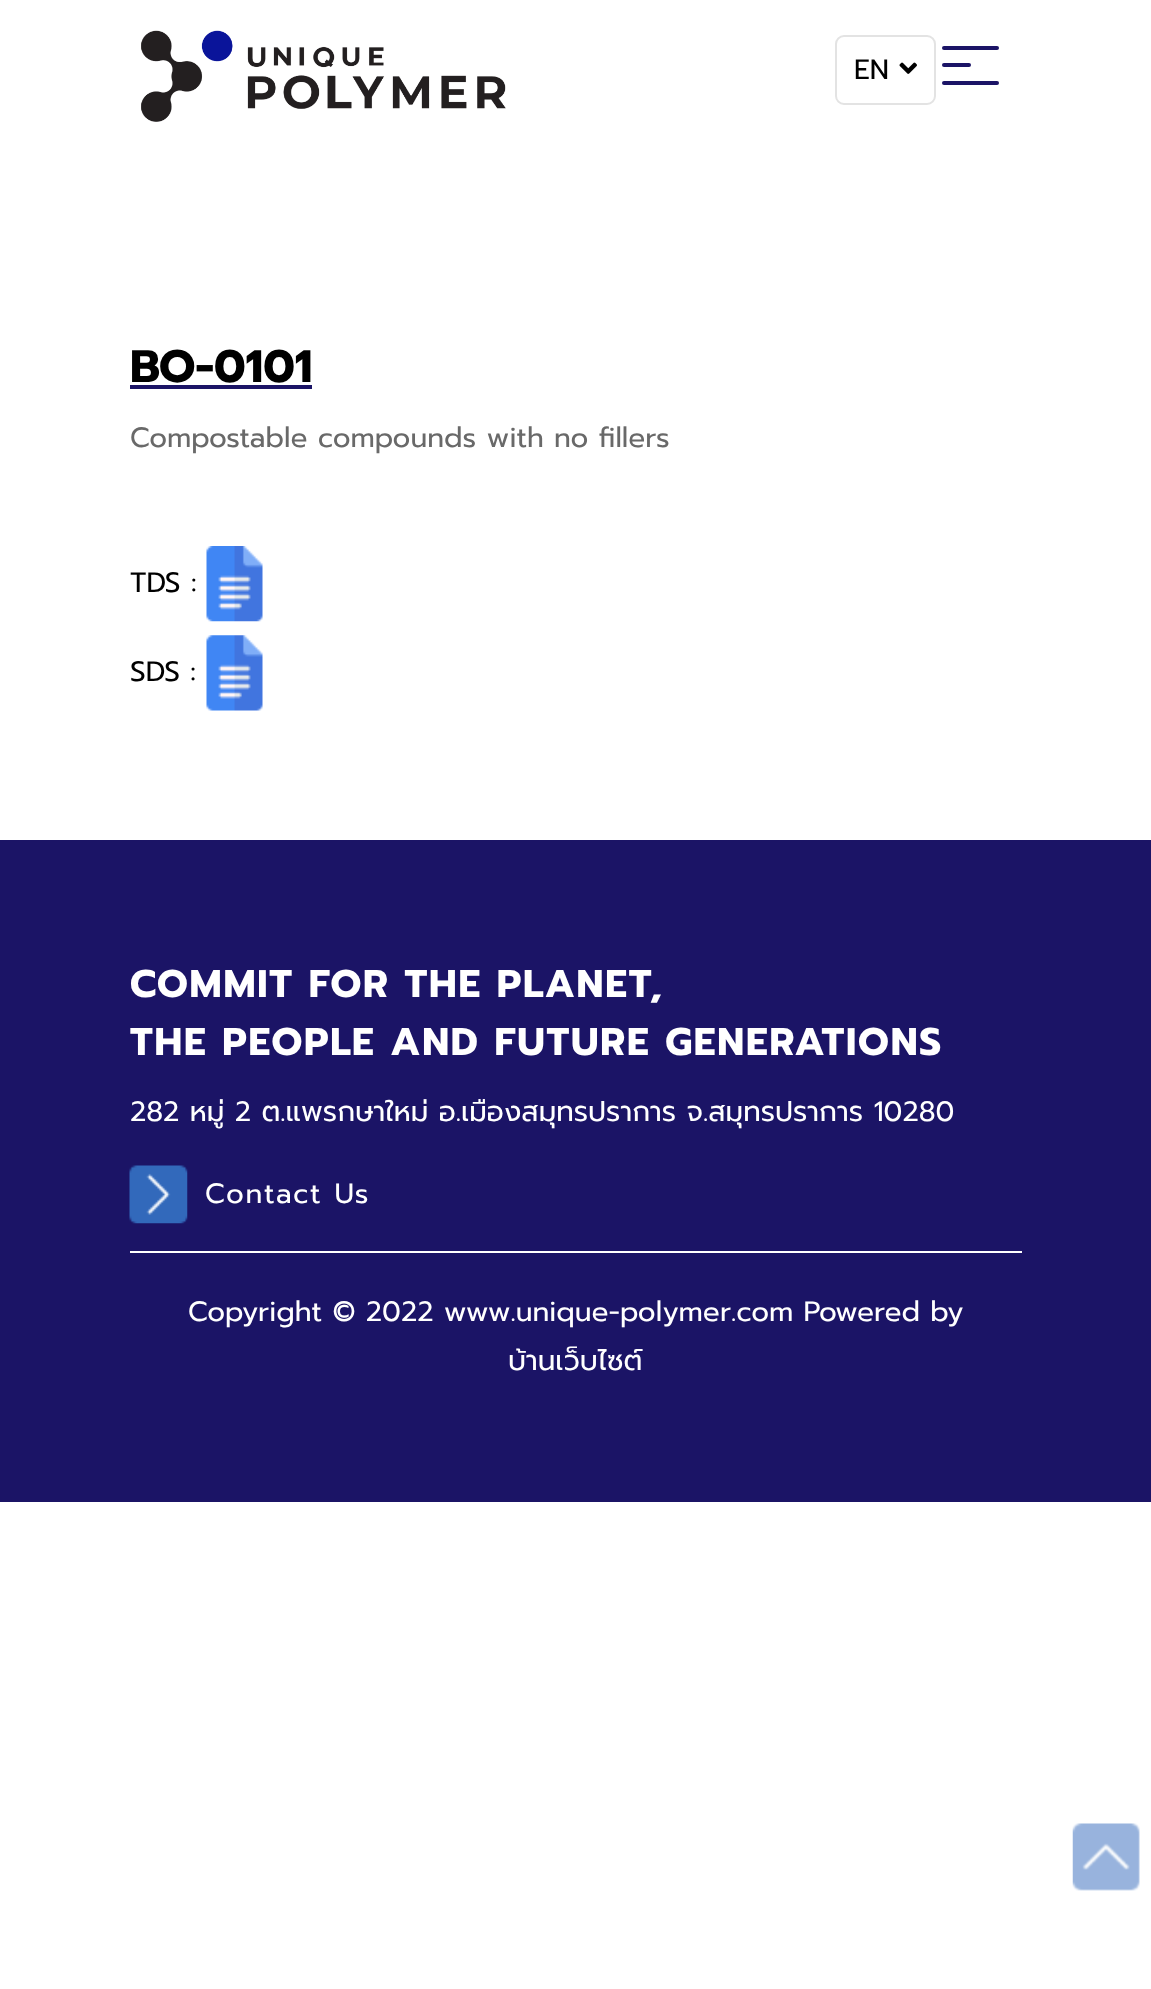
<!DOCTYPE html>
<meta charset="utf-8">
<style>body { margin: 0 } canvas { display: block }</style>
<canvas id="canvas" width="1151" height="1989"></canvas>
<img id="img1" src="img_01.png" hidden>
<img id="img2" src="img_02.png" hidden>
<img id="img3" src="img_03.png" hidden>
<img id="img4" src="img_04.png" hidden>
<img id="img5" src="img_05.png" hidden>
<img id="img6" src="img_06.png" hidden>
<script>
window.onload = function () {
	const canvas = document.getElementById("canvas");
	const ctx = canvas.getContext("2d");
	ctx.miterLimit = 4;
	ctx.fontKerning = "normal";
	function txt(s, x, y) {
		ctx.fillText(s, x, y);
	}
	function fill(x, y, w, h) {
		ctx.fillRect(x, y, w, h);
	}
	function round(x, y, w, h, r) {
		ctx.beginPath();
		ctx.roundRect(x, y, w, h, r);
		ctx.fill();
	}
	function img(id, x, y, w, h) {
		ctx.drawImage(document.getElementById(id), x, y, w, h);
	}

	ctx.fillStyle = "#FFFFFF";
	fill(0, 0, 1151, 1989);
	img("img1", 141, 30, 365, 92);
	ctx.beginPath();
	ctx.roundRect(836, 36, 99, 68, 8);
	ctx.strokeStyle = "#E3E3E3";
	ctx.lineWidth = 2;
	ctx.stroke();
	img("img2", 899, 62, 18, 12);
	ctx.fillStyle = "#1B1466";
	round(942, 46, 57, 4, 2);
	round(942, 63, 29, 4, 2);
	round(942, 81, 57, 4, 2);
	fill(130, 385, 182, 4);
	img("img3", 206, 546, 57, 76);
	img("img4", 206, 635, 57, 76);
	fill(0, 840, 1151, 662);
	img("img5", 129, 1165, 59, 59);
	ctx.fillStyle = "#FFFFFF";
	fill(130, 1251, 892, 2);
	img("img6", 1072, 1823, 68, 68);
	ctx.font = "28px Prompt";
	ctx.fillStyle = "#000000";
	txt("EN", 854, 79);
	ctx.font = "bold 45.5px Prompt";
	txt("BO-0101", 130, 382);
	ctx.font = "28px Prompt";
	ctx.fillStyle = "#696969";
	txt("Compostable compounds with no fillers", 130, 447);
	ctx.fillStyle = "#000000";
	txt("TDS :", 130, 592);
	txt("SDS :", 130, 681);
	ctx.letterSpacing = "1.75px";
	ctx.font = "bold 38.5px Prompt";
	ctx.fillStyle = "#FFFFFF";
	txt("COMMIT FOR THE PLANET,", 130, 997);
	txt("THE PEOPLE AND FUTURE GENERATIONS", 130, 1055);
	ctx.letterSpacing = "0px";
	ctx.font = "28px Prompt";
	txt("282 หมู่ 2 ต.แพรกษาใหม่ อ.เมืองสมุทรปราการ จ.สมุทรปราการ 10280", 130, 1121);
	ctx.letterSpacing = "1.75px";
	txt("Contact Us", 205, 1203);
	ctx.letterSpacing = "0px";
	txt("Copyright © 2022 www.unique-polymer.com Powered by", 188, 1321);
	txt("บ้านเว็บไซต์", 508, 1370);
};
</script>
